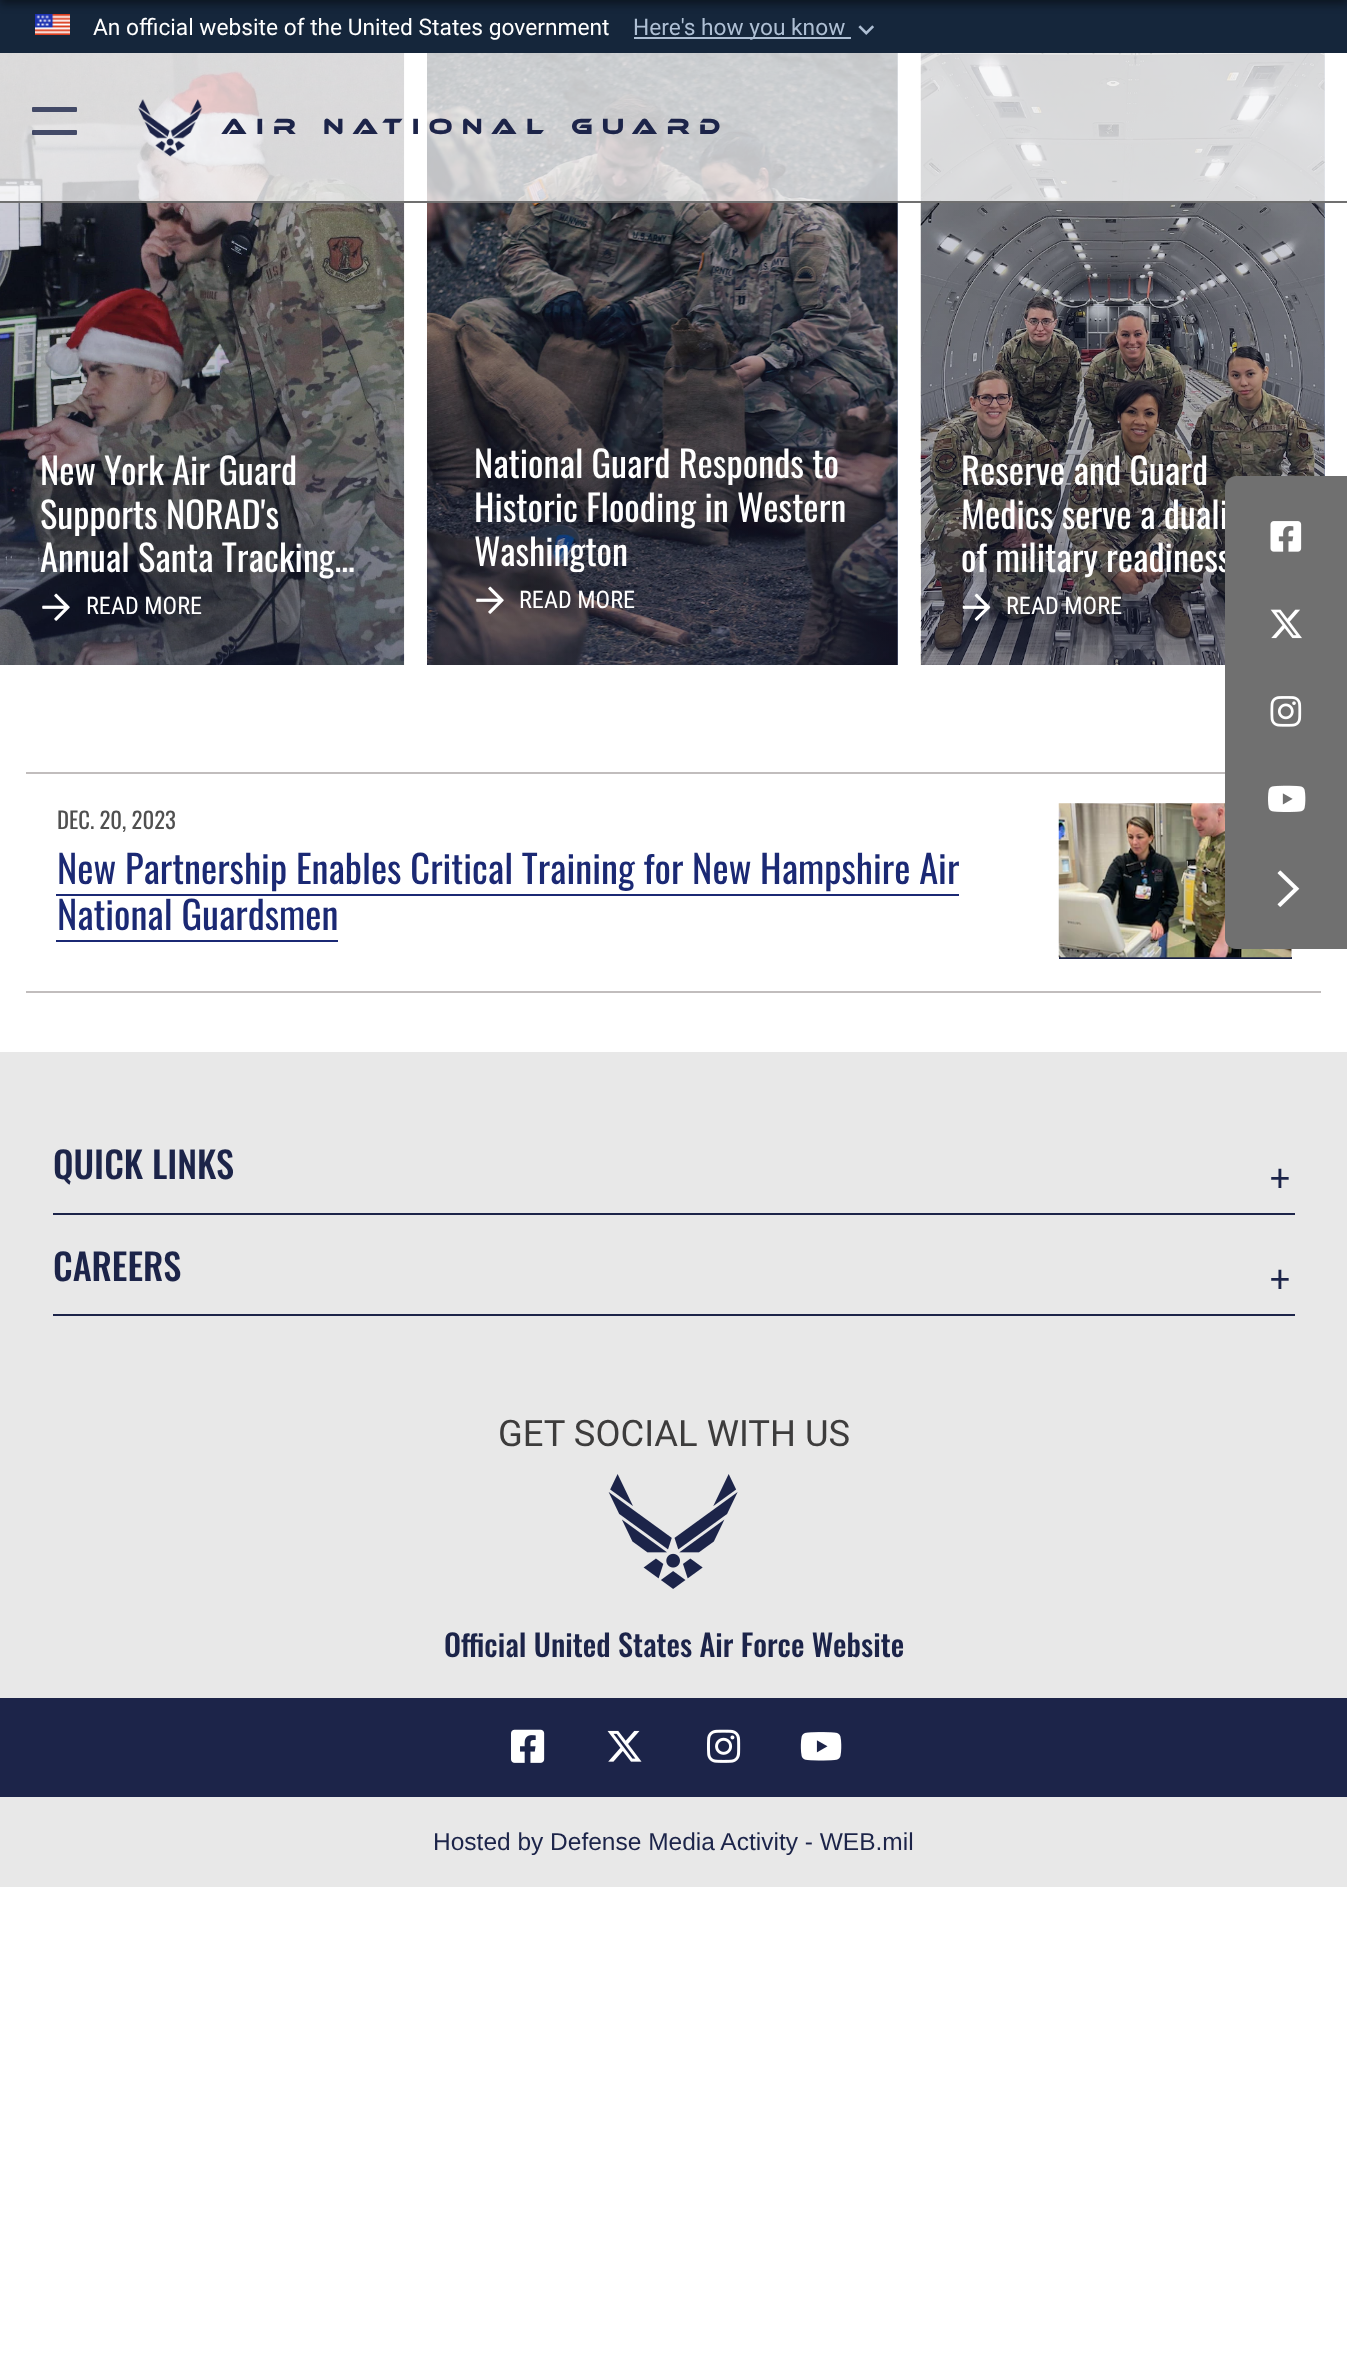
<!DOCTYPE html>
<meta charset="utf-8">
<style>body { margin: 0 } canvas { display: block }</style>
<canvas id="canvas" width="1347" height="2380"></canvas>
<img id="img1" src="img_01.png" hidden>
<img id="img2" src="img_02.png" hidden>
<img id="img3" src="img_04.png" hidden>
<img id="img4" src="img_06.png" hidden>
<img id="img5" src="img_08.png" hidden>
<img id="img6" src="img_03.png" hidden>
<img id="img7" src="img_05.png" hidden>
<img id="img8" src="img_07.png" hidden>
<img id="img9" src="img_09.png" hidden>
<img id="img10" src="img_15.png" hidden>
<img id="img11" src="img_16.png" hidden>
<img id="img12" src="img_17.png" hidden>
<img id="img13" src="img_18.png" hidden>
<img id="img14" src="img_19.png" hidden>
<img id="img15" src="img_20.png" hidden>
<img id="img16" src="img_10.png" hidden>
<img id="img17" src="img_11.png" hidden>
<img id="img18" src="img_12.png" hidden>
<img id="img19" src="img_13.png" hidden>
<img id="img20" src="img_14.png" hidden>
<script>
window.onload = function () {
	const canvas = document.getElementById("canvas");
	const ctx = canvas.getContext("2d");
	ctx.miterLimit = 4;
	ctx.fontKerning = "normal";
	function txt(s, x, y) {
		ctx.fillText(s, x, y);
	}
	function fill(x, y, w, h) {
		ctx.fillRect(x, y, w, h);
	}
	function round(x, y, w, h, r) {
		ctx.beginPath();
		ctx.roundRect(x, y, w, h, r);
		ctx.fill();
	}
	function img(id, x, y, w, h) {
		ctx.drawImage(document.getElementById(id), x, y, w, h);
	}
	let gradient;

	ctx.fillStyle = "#FFFFFF";
	fill(0, 0, 1347, 2380);
	ctx.fillStyle = "#15263B";
	fill(0, 0, 1347, 53);
	img("img1", 35, 14, 35, 21);
	ctx.fillStyle = "#AEBFD4";
	fill(634, 37, 217, 2);
	img("img2", 858, 25, 16, 10);
	ctx.fillStyle = "rgba(2, 4, 6, 0.5)";
	ctx.filter = "blur(4.5px)";
	ctx.beginPath();
	ctx.rect(0, -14, 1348, 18);
	ctx.fill();
	ctx.filter = "none";
	img("img3", 0, 53, 405, 612);
	ctx.fillStyle = "#B5C7E3";
	fill(897, 53, 1, 612);
	img("img4", 427, 53, 471, 612);
	gradient = ctx.createLinearGradient(662, 52, 662, 665);
	gradient.addColorStop(0.05, "rgba(28, 35, 71, 0.15)");
	gradient.addColorStop(1, "rgba(28, 35, 71, 0.48)");
	ctx.fillStyle = gradient;
	fill(427, 53, 471, 612);
	ctx.fillStyle = "#B5C7E3";
	fill(1324, 53, 1, 423);
	img("img5", 920, 53, 405, 612);
	gradient = ctx.createLinearGradient(1123, 53, 1123, 665);
	gradient.addColorStop(0.05, "rgba(28, 35, 71, 0.15)");
	gradient.addColorStop(1, "rgba(28, 35, 71, 0.48)");
	ctx.fillStyle = gradient;
	fill(921, 53, 404, 612);
	ctx.fillStyle = "rgba(255, 255, 255, 0.75)";
	fill(0, 53, 1325, 148);
	ctx.fillStyle = "#707070";
	fill(0, 201, 1347, 2);
	ctx.fillStyle = "rgba(28, 36, 73, 0.8)";
	round(32, 107, 45, 5, 1);
	round(32, 130, 45, 5, 1);
	img("img6", 138, 99, 65, 58);
	img("img7", 42, 593, 28, 28);
	img("img8", 476, 586, 28, 28);
	img("img9", 962, 593, 29, 28);
	ctx.fillStyle = "#C1BDBD";
	fill(26, 772, 1199, 2);
	fill(26, 991, 1295, 2);
	ctx.fillStyle = "#1B2974";
	fill(56, 894, 903, 2);
	fill(56, 940, 282, 2);
	ctx.fillStyle = "#1C2347";
	fill(1059, 957, 233, 2);
	img("img10", 1058, 803, 234, 155);
	ctx.fillStyle = "#E8E8E8";
	fill(0, 1052, 1347, 835);
	ctx.fillStyle = "#1C2449";
	fill(53, 1213, 1242, 2);
	fill(53, 1314, 1242, 2);
	img("img11", 608, 1474, 130, 115);
	fill(0, 1698, 1347, 99);
	img("img12", 511, 1729, 34, 34);
	img("img13", 607, 1730, 35, 32);
	img("img14", 707, 1729, 34, 34);
	img("img15", 800, 1732, 42, 29);
	ctx.font = "22.75px Roboto";
	ctx.fillStyle = "#FFFFFF";
	txt("An official website of the United States government", 93, 35);
	ctx.fillStyle = "#AEBFD4";
	txt("Here's how you know", 633, 35);
	ctx.letterSpacing = "9.1px";
	ctx.font = "22.75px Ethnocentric";
	ctx.fillStyle = "#1C2449";
	txt("Air National Guard", 221, 134);
	ctx.letterSpacing = "0px";
	ctx.font = "36.4px Oswald";
	ctx.fillStyle = "#FFFFFF";
	txt("New York Air Guard", 40, 485);
	txt("Supports NORAD's", 40, 529);
	txt("Annual Santa Tracking…", 40, 572);
	ctx.font = "24.25px Roboto Condensed";
	txt("READ MORE", 86, 614);
	ctx.font = "36.4px Oswald";
	txt("National Guard Responds to", 474, 478);
	txt("Historic Flooding in Western", 474, 522);
	ctx.save();
	ctx.beginPath();
	ctx.rect(474, 441, 377, 131);
	ctx.clip();
	txt("Washington", 474, 566);
	ctx.restore();
	ctx.font = "24.25px Roboto Condensed";
	txt("READ MORE", 519, 608);
	ctx.font = "36.4px Oswald";
	txt("Reserve and Guard", 961, 485);
	txt("Medics serve a duali", 961, 529);
	txt("of military readiness", 961, 572);
	ctx.font = "24.25px Roboto Condensed";
	txt("READ MORE", 1006, 614);
	ctx.fillStyle = "#707070";
	ctx.beginPath();
	ctx.moveTo(1236, 476);
	ctx.lineTo(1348, 476);
	ctx.lineTo(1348, 949);
	ctx.lineTo(1236, 949);
	ctx.bezierCurveTo(1230, 949, 1225, 944, 1225, 938);
	ctx.lineTo(1225, 487);
	ctx.bezierCurveTo(1225, 481, 1230, 476, 1236, 476);
	ctx.closePath();
	ctx.fill();
	img("img16", 1270, 521, 32, 31);
	img("img17", 1270, 609, 32, 30);
	img("img18", 1270, 696, 32, 31);
	img("img19", 1268, 785, 38, 27);
	img("img20", 1277, 870, 23, 37);
	ctx.font = "22.75px Oswald";
	ctx.fillStyle = "#505050";
	txt("DEC. 20, 2023", 57, 829);
	ctx.font = "38.5px Oswald";
	ctx.fillStyle = "#1B2974";
	txt("New Partnership Enables Critical Training for New Hampshire Air", 57, 884);
	txt("National Guardsmen", 57, 930);
	ctx.font = "500 36.4px Oswald";
	ctx.fillStyle = "#1C2449";
	txt("QUICK LINKS", 53, 1179);
	ctx.font = "300 52px Oswald";
	txt("+", 1270, 1200);
	ctx.font = "500 36.4px Oswald";
	txt("CAREERS", 53, 1281);
	ctx.font = "300 52px Oswald";
	txt("+", 1270, 1301);
	ctx.font = "36.4px Roboto";
	ctx.fillStyle = "#3D3C3C";
	txt("GET SOCIAL WITH US", 498, 1446);
	ctx.font = "500 30.25px Oswald";
	ctx.fillStyle = "#1C2449";
	txt("Official United States Air Force Website", 444, 1657);
	ctx.font = "24.5px Liberation Sans";
	txt("Hosted by Defense Media Activity - WEB.mil", 433, 1850);
};
</script>
